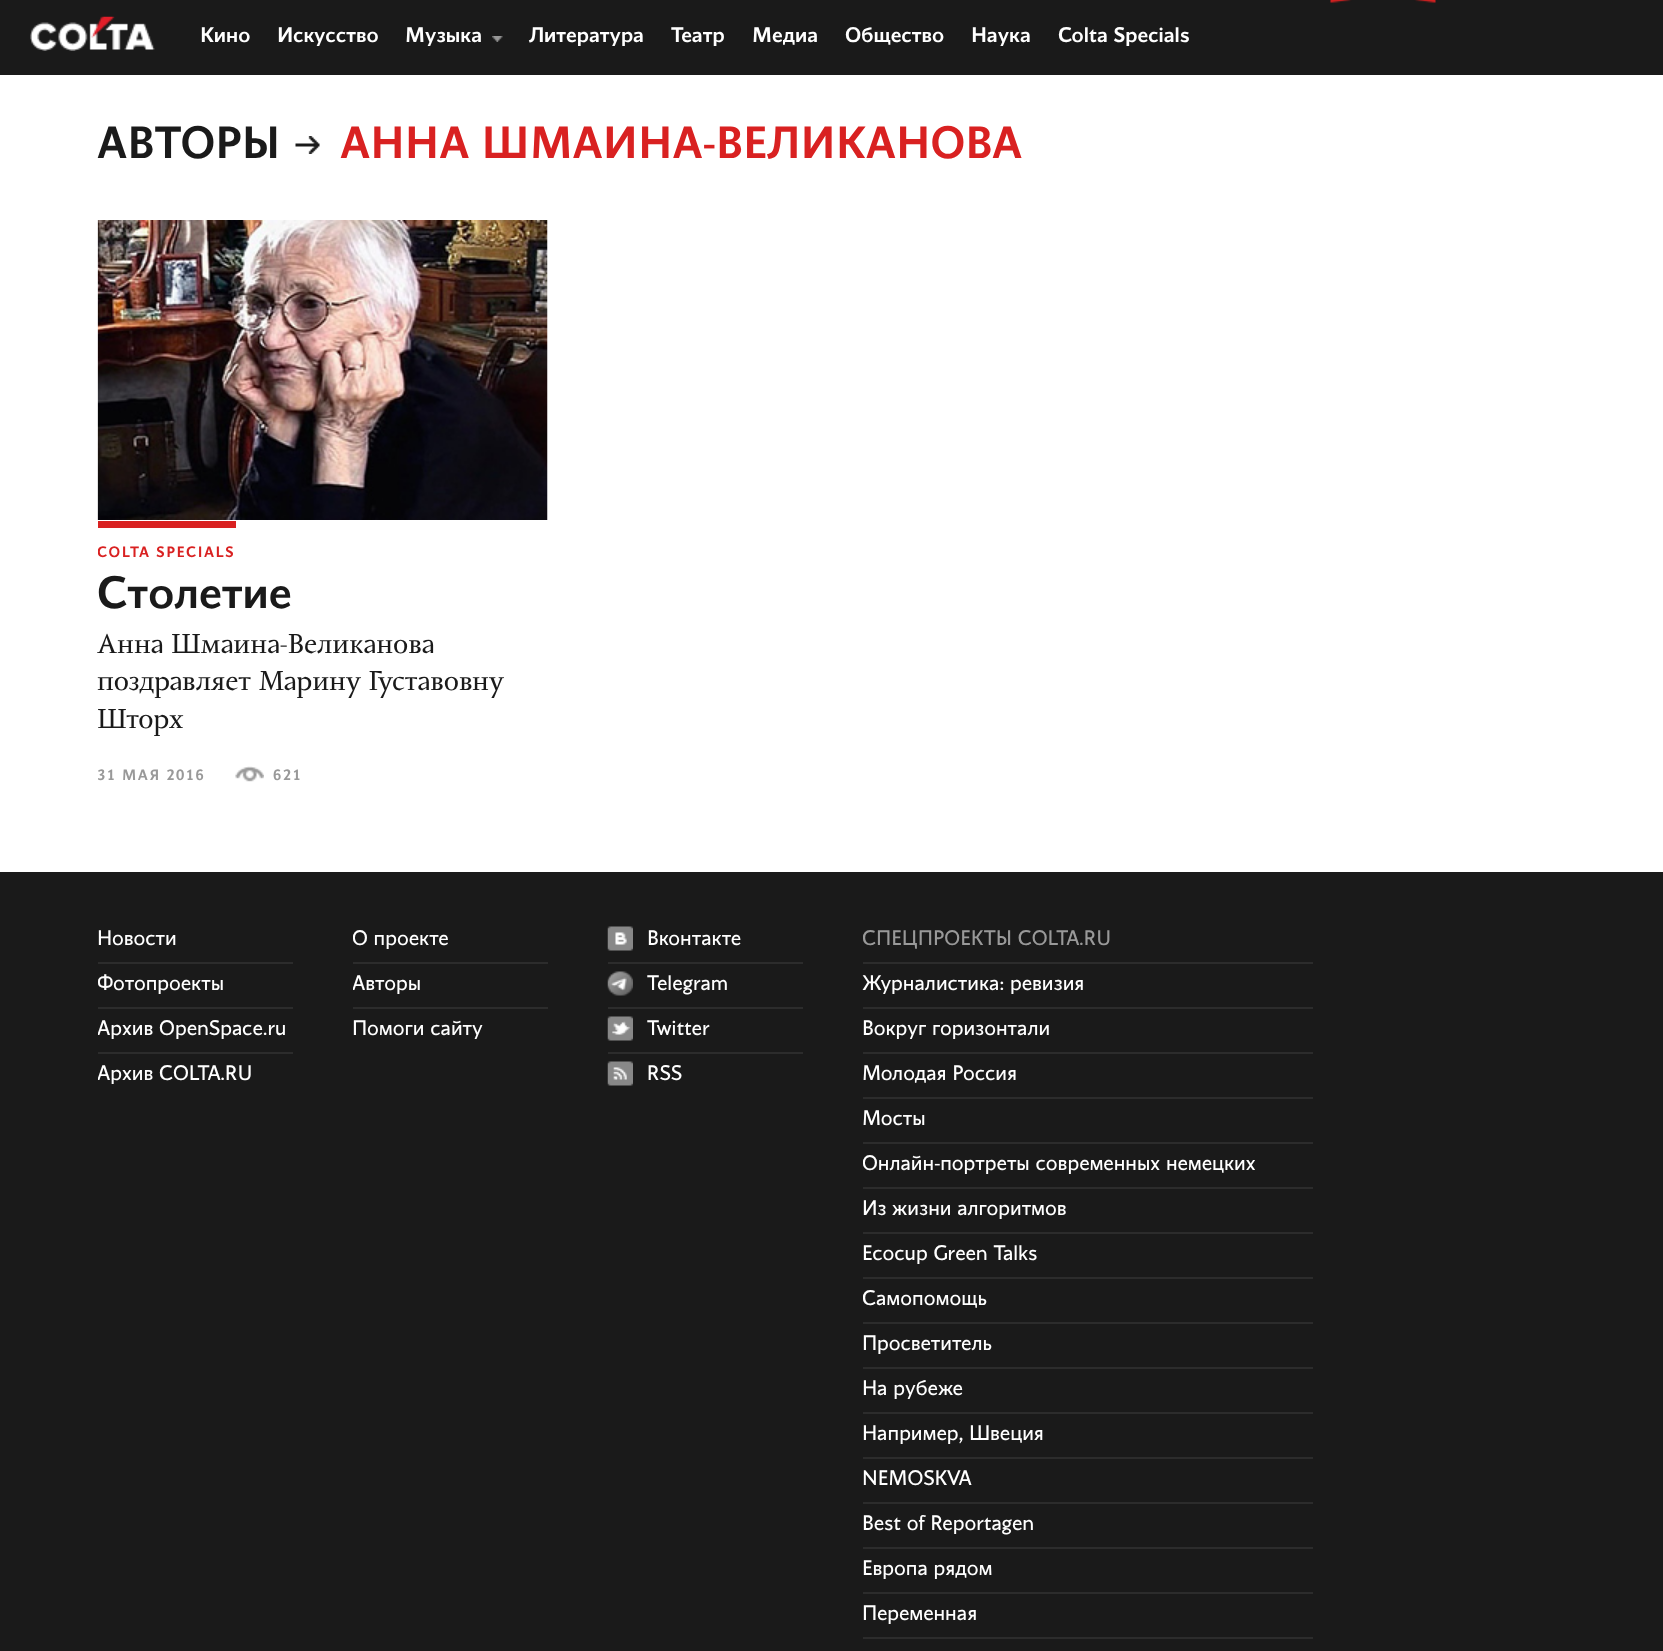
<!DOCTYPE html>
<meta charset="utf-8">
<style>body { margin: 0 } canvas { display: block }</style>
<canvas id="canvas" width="1663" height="1651"></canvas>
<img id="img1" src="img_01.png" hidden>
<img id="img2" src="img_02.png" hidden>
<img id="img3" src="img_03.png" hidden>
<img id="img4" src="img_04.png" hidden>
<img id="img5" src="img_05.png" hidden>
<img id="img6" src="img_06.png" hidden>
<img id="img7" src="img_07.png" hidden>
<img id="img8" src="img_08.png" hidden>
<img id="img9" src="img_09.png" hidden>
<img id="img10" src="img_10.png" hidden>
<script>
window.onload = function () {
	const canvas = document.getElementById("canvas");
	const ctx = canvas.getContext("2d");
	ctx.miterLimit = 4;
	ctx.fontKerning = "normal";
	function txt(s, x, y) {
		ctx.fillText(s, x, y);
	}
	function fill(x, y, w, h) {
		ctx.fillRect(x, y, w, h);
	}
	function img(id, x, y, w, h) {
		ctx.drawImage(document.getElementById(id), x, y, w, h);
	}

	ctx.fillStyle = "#FFFFFF";
	fill(0, 0, 1663, 1651);
	ctx.fillStyle = "#1A1A1A";
	fill(0, 0, 1663, 75);
	img("img1", 1330, 0, 106, 3);
	img("img2", 30, 16, 125, 35);
	img("img3", 492, 36, 11, 6);
	img("img4", 295, 136, 25, 18);
	img("img5", 97, 220, 451, 300);
	ctx.fillStyle = "#D92121";
	fill(98, 521, 138, 7);
	img("img6", 235, 766, 29, 16);
	ctx.fillStyle = "#1A1A1A";
	fill(0, 872, 1663, 779);
	ctx.fillStyle = "#2C2C2C";
	fill(98, 962, 195, 2);
	fill(98, 1007, 195, 2);
	fill(98, 1052, 195, 2);
	fill(353, 962, 195, 2);
	fill(353, 1007, 195, 2);
	fill(608, 962, 195, 2);
	img("img7", 607, 926, 26, 25);
	fill(608, 1007, 195, 2);
	img("img8", 607, 971, 26, 25);
	fill(608, 1052, 195, 2);
	img("img9", 607, 1016, 26, 25);
	img("img10", 607, 1061, 26, 25);
	fill(863, 962, 450, 2);
	fill(863, 1007, 450, 2);
	fill(863, 1052, 450, 2);
	fill(863, 1097, 450, 2);
	fill(863, 1142, 450, 2);
	fill(863, 1187, 450, 2);
	fill(863, 1232, 450, 2);
	fill(863, 1277, 450, 2);
	fill(863, 1322, 450, 2);
	fill(863, 1367, 450, 2);
	fill(863, 1412, 450, 2);
	fill(863, 1457, 450, 2);
	fill(863, 1502, 450, 2);
	fill(863, 1547, 450, 2);
	fill(863, 1592, 450, 2);
	fill(863, 1637, 450, 2);
	ctx.font = "500 21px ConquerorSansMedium";
	ctx.fillStyle = "#FFFFFF";
	txt("Кино", 200, 42);
	txt("Искусство", 277, 42);
	txt("Музыка", 405, 42);
	txt("Литература", 529, 42);
	txt("Театр", 671, 42);
	txt("Медиа", 752, 42);
	txt("Общество", 845, 42);
	txt("Наука", 971, 42);
	txt("Colta Specials", 1058, 42);
	ctx.font = "500 45px ConquerorSansMedium";
	ctx.fillStyle = "#1A1A1A";
	txt("АВТОРЫ", 97, 158);
	ctx.fillStyle = "#D92121";
	txt("АННА ШМАИНА-ВЕЛИКАНОВА", 340, 158);
	ctx.save();
	ctx.beginPath();
	ctx.rect(98, 528, 138, 41);
	ctx.clip();
	ctx.letterSpacing = "1.5px";
	ctx.font = "500 15px ConquerorSansMedium";
	txt("COLTA SPECIALS", 97, 557);
	ctx.restore();
	ctx.fillStyle = "#1A1A1A";
	txt("Столетие", 97, 608);
	ctx.font = "27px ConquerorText";
	txt("Анна Шмаина-Великанова", 97, 653);
	txt("поздравляет Марину Густавовну", 97, 690);
	txt("Шторх", 97, 728);
	ctx.save();
	ctx.beginPath();
	ctx.rect(98, 618, 450, 171);
	ctx.clip();
	ctx.letterSpacing = "1.5px";
	ctx.font = "500 15px ConquerorSansMedium";
	ctx.fillStyle = "#999999";
	txt("31 МАЯ 2016", 97, 780);
	ctx.restore();
	ctx.letterSpacing = "1.5px";
	ctx.font = "500 15px ConquerorSansMedium";
	ctx.fillStyle = "#999999";
	txt("621", 273, 780);
	ctx.letterSpacing = "0px";
	ctx.font = "21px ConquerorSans";
	ctx.fillStyle = "#FFFFFF";
	txt("Новости", 97, 945);
	ctx.save();
	ctx.beginPath();
	ctx.rect(98, 963, 195, 44);
	ctx.clip();
	txt("Фотопроекты", 97, 990);
	ctx.restore();
	ctx.save();
	ctx.beginPath();
	ctx.rect(98, 1008, 195, 44);
	ctx.clip();
	txt("Архив OpenSpace.ru", 97, 1035);
	ctx.restore();
	ctx.save();
	ctx.beginPath();
	ctx.rect(98, 1053, 195, 44);
	ctx.clip();
	txt("Архив COLTA.RU", 97, 1080);
	ctx.restore();
	ctx.save();
	ctx.beginPath();
	ctx.rect(353, 918, 195, 44);
	ctx.clip();
	txt("О проекте", 352, 945);
	ctx.restore();
	ctx.save();
	ctx.beginPath();
	ctx.rect(353, 963, 195, 44);
	ctx.clip();
	txt("Авторы", 352, 990);
	ctx.restore();
	txt("Помоги сайту", 352, 1035);
	txt("Вконтакте", 647, 945);
	txt("Telegram", 647, 990);
	txt("Twitter", 647, 1035);
	txt("RSS", 647, 1080);
	ctx.save();
	ctx.beginPath();
	ctx.rect(863, 918, 450, 44);
	ctx.clip();
	ctx.fillStyle = "#999999";
	txt("СПЕЦПРОЕКТЫ COLTA.RU", 862, 945);
	ctx.restore();
	txt("Журналистика: ревизия", 862, 990);
	txt("Вокруг горизонтали", 862, 1035);
	txt("Молодая Россия", 862, 1080);
	txt("Мосты", 862, 1125);
	ctx.save();
	ctx.beginPath();
	ctx.rect(863, 1143, 450, 44);
	ctx.clip();
	txt("Онлайн-портреты современных немецких", 862, 1170);
	ctx.restore();
	txt("Из жизни алгоритмов", 862, 1215);
	txt("Ecocup Green Talks", 862, 1260);
	ctx.save();
	ctx.beginPath();
	ctx.rect(863, 1278, 450, 44);
	ctx.clip();
	txt("Самопомощь", 862, 1305);
	ctx.restore();
	txt("Просветитель", 862, 1350);
	txt("На рубеже", 862, 1395);
	txt("Например, Швеция", 862, 1440);
	txt("NEMOSKVA", 862, 1485);
	txt("Best of Reportagen", 862, 1530);
	txt("Европа рядом", 862, 1575);
	txt("Переменная", 862, 1620);
};
</script>
